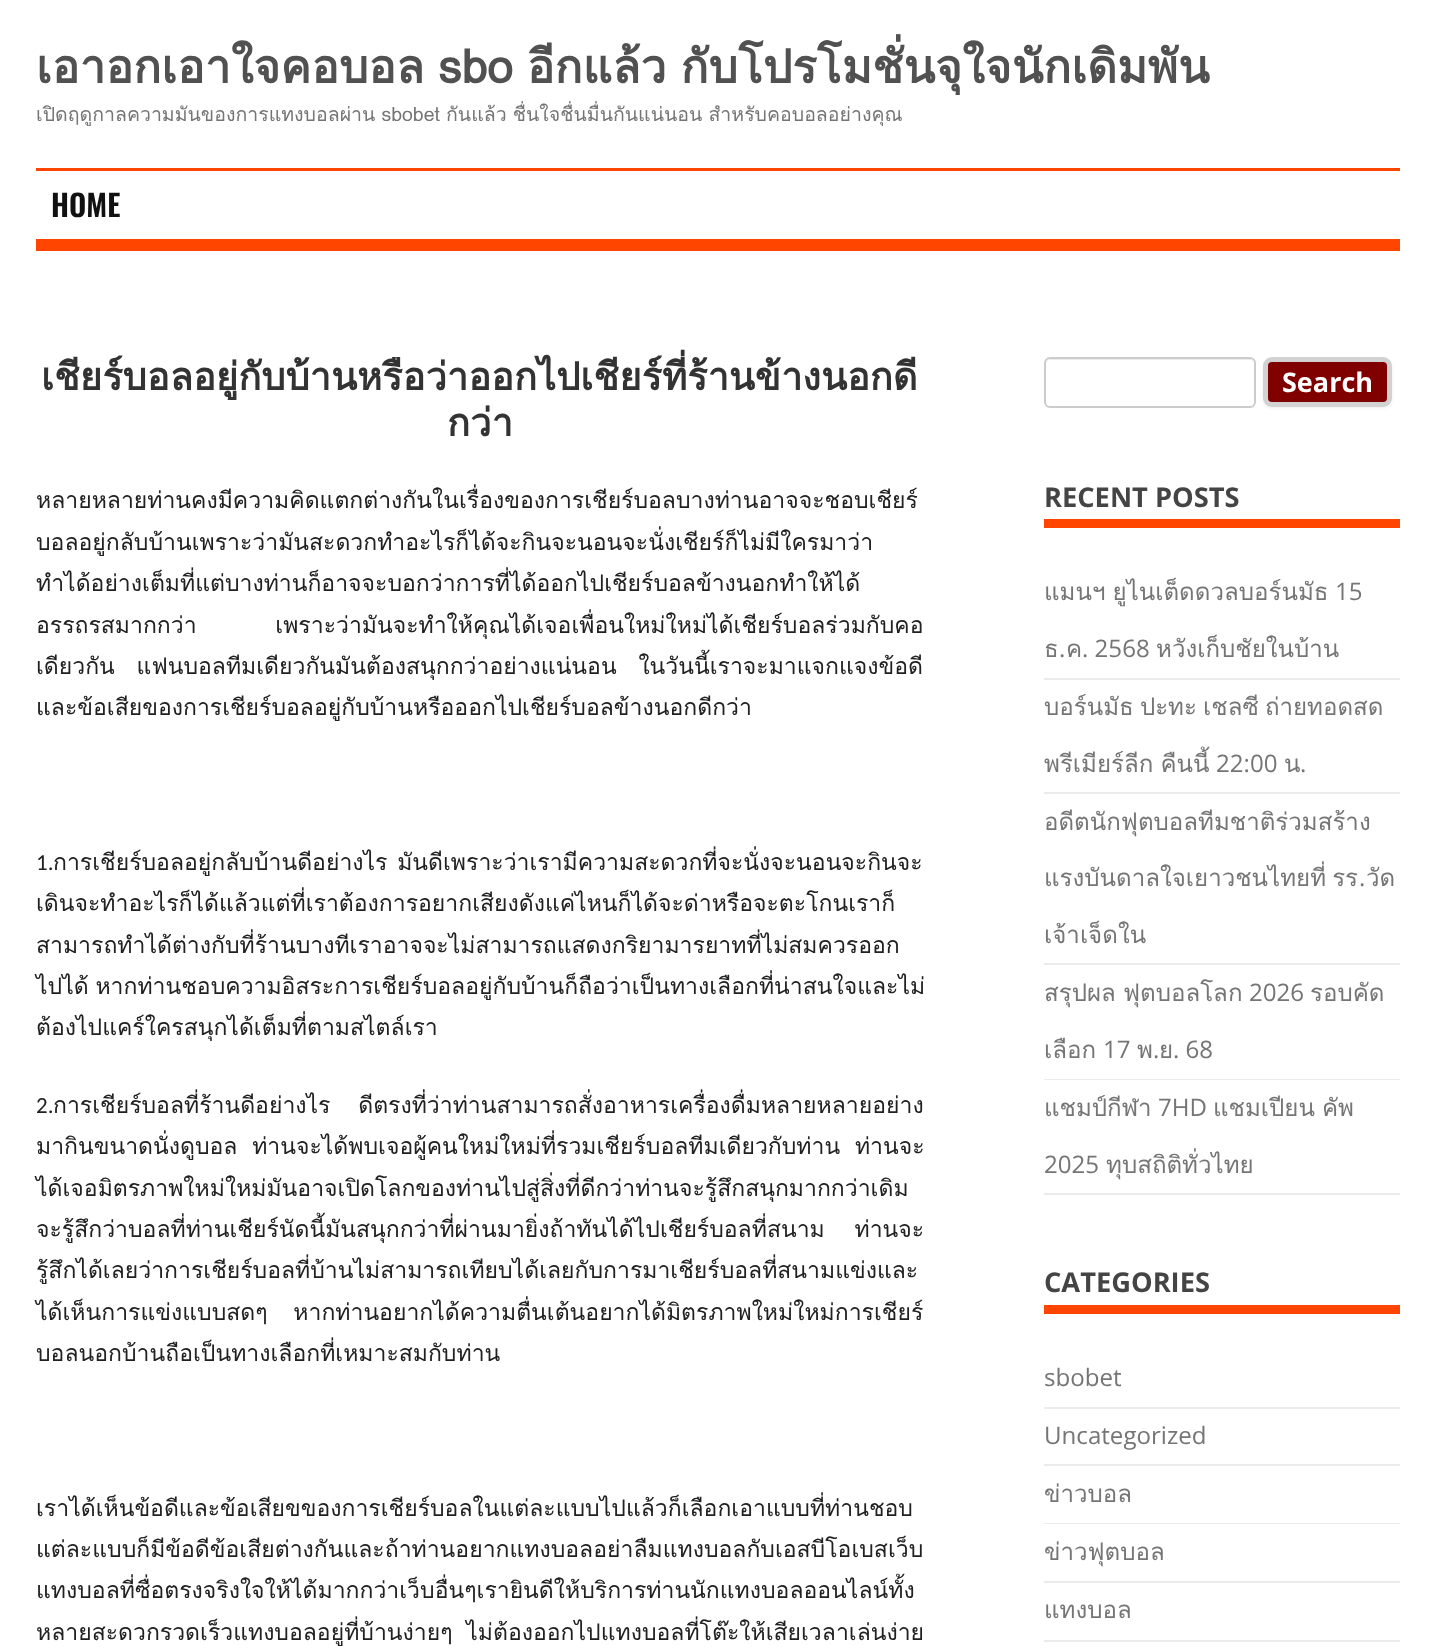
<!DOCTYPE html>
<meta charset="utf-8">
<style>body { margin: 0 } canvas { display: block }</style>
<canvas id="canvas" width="1435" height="1652"></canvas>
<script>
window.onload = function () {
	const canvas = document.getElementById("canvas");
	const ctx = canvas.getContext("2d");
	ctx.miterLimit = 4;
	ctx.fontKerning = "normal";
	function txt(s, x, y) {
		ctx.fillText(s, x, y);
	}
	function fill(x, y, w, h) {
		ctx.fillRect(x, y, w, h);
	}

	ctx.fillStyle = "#FFFFFF";
	fill(0, 0, 1435, 1652);
	ctx.fillStyle = "#FF4500";
	fill(36, 168, 1364, 3);
	fill(36, 239, 1364, 12);
	ctx.fillStyle = "#ECECEC";
	ctx.beginPath();
	ctx.moveTo(1050, 360);
	ctx.lineTo(1250, 360);
	ctx.bezierCurveTo(1252, 360, 1254, 362, 1254, 364);
	ctx.bezierCurveTo(1254, 361, 1252, 359, 1249, 359);
	ctx.lineTo(1051, 359);
	ctx.bezierCurveTo(1048, 359, 1046, 361, 1046, 364);
	ctx.bezierCurveTo(1046, 362, 1048, 360, 1050, 360);
	ctx.closePath();
	ctx.fill();
	ctx.beginPath();
	ctx.roundRect(1045, 358, 210, 49, 5);
	ctx.strokeStyle = "#CCCCCC";
	ctx.lineWidth = 2;
	ctx.stroke();
	ctx.fillStyle = "rgba(64, 64, 64, 0.1)";
	ctx.filter = "blur(1.5px)";
	ctx.beginPath();
	ctx.roundRect(1263, 359, 129, 49, 9);
	ctx.fill();
	ctx.filter = "none";
	ctx.fillStyle = "#800000";
	ctx.beginPath();
	ctx.roundRect(1265.5, 359.5, 124, 45, 6.5);
	ctx.fill();
	ctx.strokeStyle = "#D2D2D2";
	ctx.lineWidth = 5;
	ctx.stroke();
	ctx.fillStyle = "#FF4500";
	fill(1044, 519, 356, 9);
	ctx.fillStyle = "#EBEBEB";
	fill(1044, 678, 356, 2);
	fill(1044, 792, 356, 2);
	fill(1044, 963, 356, 2);
	fill(1044, 1079, 356, 1);
	fill(1044, 1193, 356, 2);
	ctx.fillStyle = "#FF4500";
	fill(1044, 1305, 356, 9);
	ctx.fillStyle = "#EBEBEB";
	fill(1044, 1407, 356, 2);
	fill(1044, 1464, 356, 2);
	fill(1044, 1523, 356, 1);
	fill(1044, 1581, 356, 2);
	fill(1044, 1640, 356, 2);
	ctx.wordSpacing = "-1.5px";
	ctx.font = "bold 46.2px Loma";
	ctx.fillStyle = "#515151";
	txt("เอาอกเอาใจคอบอล sbo อีกแล้ว กับโปรโมชั่นจุใจนักเดิมพัน", 36, 83);
	ctx.wordSpacing = "-0.5px";
	ctx.font = "19.5px Loma";
	ctx.fillStyle = "#757575";
	txt("เปิดฤดูกาลความมันของการแทงบอลผ่าน sbobet กันแล้ว ชื่นใจชื่นมื่นกันแน่นอน สำหรับคอบอลอย่างคุณ", 36, 121);
	ctx.wordSpacing = "0px";
	ctx.font = "600 30px Oswald";
	ctx.fillStyle = "#111111";
	txt("HOME", 51, 217);
	ctx.font = "bold 38.1px Loma";
	ctx.fillStyle = "#333333";
	txt("เชียร์บอลอยู่กับบ้านหรือว่าออกไปเชียร์ที่ร้านข้างนอกดี", 41, 390);
	txt("กว่า", 447, 436);
	ctx.font = "23px Loma";
	ctx.fillStyle = "#212121";
	txt("หลายหลายท่านคงมีความคิดแตกต่างกันในเรื่องของการเชียร์บอลบางท่านอาจจะชอบเชียร์", 36, 508);
	txt("บอลอยู่กลับบ้านเพราะว่ามันสะดวกทำอะไรก็ได้จะกินจะนอนจะนั่งเชียร์ก็ไม่มีใครมาว่า", 36, 550);
	txt("ทำได้อย่างเต็มที่แต่บางท่านก็อาจจะบอกว่าการที่ได้ออกไปเชียร์บอลข้างนอกทำให้ได้", 36, 591);
	ctx.wordSpacing = "71px";
	txt("อรรถรสมากกว่า เพราะว่ามันจะทำให้คุณได้เจอเพื่อนใหม่ใหม่ได้เชียร์บอลร่วมกับคอ", 36, 633);
	ctx.wordSpacing = "14px";
	txt("เดียวกัน แฟนบอลทีมเดียวกันมันต้องสนุกกว่าอย่างแน่นอน ในวันนี้เราจะมาแจกแจงข้อดี", 36, 674);
	ctx.wordSpacing = "0px";
	txt("และข้อเสียของการเชียร์บอลอยู่กับบ้านหรือออกไปเชียร์บอลข้างนอกดีกว่า", 36, 715);
	ctx.font = "23px Carlito";
	txt("1.", 36, 870);
	ctx.wordSpacing = "2px";
	ctx.font = "23px Loma";
	txt("การเชียร์บอลอยู่กลับบ้านดีอย่างไร มันดีเพราะว่าเรามีความสะดวกที่จะนั่งจะนอนจะกินจะ", 53, 870);
	ctx.wordSpacing = "0px";
	txt("เดินจะทำอะไรก็ได้แล้วแต่ที่เราต้องการอยากเสียงดังแค่ไหนก็ได้จะด่าหรือจะตะโกนเราก็", 36, 911);
	txt("สามารถทำได้ต่างกับที่ร้านบางทีเราอาจจะไม่สามารถแสดงกริยามารยาทที่ไม่สมควรออก", 36, 953);
	ctx.wordSpacing = "-1px";
	txt("ไปได้ หากท่านชอบความอิสระการเชียร์บอลอยู่กับบ้านก็ถือว่าเป็นทางเลือกที่น่าสนใจและไม่", 36, 994);
	ctx.wordSpacing = "0px";
	txt("ต้องไปแคร์ใครสนุกได้เต็มที่ตามสไตล์เรา", 36, 1035);
	ctx.font = "23px Carlito";
	txt("2.", 36, 1113);
	ctx.wordSpacing = "20px";
	ctx.font = "23px Loma";
	txt("การเชียร์บอลที่ร้านดีอย่างไร ดีตรงที่ว่าท่านสามารถสั่งอาหารเครื่องดื่มหลายหลายอย่าง", 53, 1113);
	ctx.wordSpacing = "7px";
	txt("มากินขนาดนั่งดูบอล ท่านจะได้พบเจอผู้คนใหม่ใหม่ที่รวมเชียร์บอลทีมเดียวกับท่าน ท่านจะ", 36, 1154);
	ctx.wordSpacing = "0px";
	txt("ได้เจอมิตรภาพใหม่ใหม่มันอาจเปิดโลกของท่านไปสู่สิ่งที่ดีกว่าท่านจะรู้สึกสนุกมากกว่าเดิม", 36, 1196);
	ctx.wordSpacing = "22px";
	txt("จะรู้สึกว่าบอลที่ท่านเชียร์นัดนี้มันสนุกกว่าที่ผ่านมายิ่งถ้าทันได้ไปเชียร์บอลที่สนาม ท่านจะ", 36, 1237);
	ctx.wordSpacing = "0px";
	txt("รู้สึกได้เลยว่าการเชียร์บอลที่บ้านไม่สามารถเทียบได้เลยกับการมาเชียร์บอลที่สนามแข่งและ", 36, 1278);
	ctx.wordSpacing = "18px";
	txt("ได้เห็นการแข่งแบบสดๆ หากท่านอยากได้ความตื่นเต้นอยากได้มิตรภาพใหม่ใหม่การเชียร์", 36, 1320);
	ctx.wordSpacing = "0px";
	txt("บอลนอกบ้านถือเป็นทางเลือกที่เหมาะสมกับท่าน", 36, 1361);
	txt("เราได้เห็นข้อดีและข้อเสียขของการเชียร์บอลในแต่ละแบบไปแล้วก็เลือกเอาแบบที่ท่านชอบ", 36, 1516);
	txt("แต่ละแบบก็มีข้อดีข้อเสียต่างกันและถ้าท่านอยากแทงบอลอย่าลืมแทงบอลกับเอสบีโอเบสเว็บ", 36, 1557);
	txt("แทงบอลที่ซื่อตรงจริงใจให้ได้มากกว่าเว็บอื่นๆเรายินดีให้บริการท่านนักแทงบอลออนไลน์ทั้ง", 36, 1598);
	ctx.wordSpacing = "6px";
	txt("หลายสะดวกรวดเร็วแทงบอลอยู่ที่บ้านง่ายๆ ไม่ต้องออกไปแทงบอลที่โต๊ะให้เสียเวลาเล่นง่าย", 36, 1640);
	ctx.wordSpacing = "0px";
	ctx.font = "bold 27px Open Sans";
	ctx.fillStyle = "#FFFFFF";
	txt("Search", 1282, 392);
	ctx.font = "bold 27.25px Open Sans";
	ctx.fillStyle = "#444444";
	txt("RECENT POSTS", 1044, 507);
	ctx.wordSpacing = "-1px";
	ctx.font = "24.1px Loma";
	ctx.fillStyle = "#757575";
	txt("แมนฯ ยูไนเต็ดดวลบอร์นมัธ", 1044, 600);
	ctx.wordSpacing = "0px";
	ctx.font = "24.1px Open Sans";
	txt("15", 1335, 600);
	ctx.font = "24.1px Loma";
	txt("ธ", 1044, 657);
	ctx.font = "24.1px Open Sans";
	txt(".", 1059, 657);
	ctx.font = "24.1px Loma";
	txt("ค", 1066, 657);
	ctx.font = "24.1px Open Sans";
	txt(". 2568", 1082, 657);
	ctx.font = "24.1px Loma";
	txt("หวังเก็บชัยในบ้าน", 1156, 657);
	ctx.wordSpacing = "-2px";
	txt("บอร์นมัธ ปะทะ เชลซี ถ่ายทอดสด", 1044, 715);
	ctx.wordSpacing = "-1px";
	txt("พรีเมียร์ลีก คืนนี้", 1044, 772);
	ctx.wordSpacing = "0px";
	ctx.font = "24.1px Open Sans";
	txt("22:00", 1216, 772);
	ctx.font = "24.1px Loma";
	txt("น", 1284, 772);
	ctx.font = "24.1px Open Sans";
	txt(".", 1300, 772);
	ctx.font = "24.1px Loma";
	txt("อดีตนักฟุตบอลทีมชาติร่วมสร้าง", 1044, 830);
	ctx.wordSpacing = "-2px";
	txt("แรงบันดาลใจเยาวชนไทยที่ รร", 1044, 886);
	ctx.wordSpacing = "0px";
	ctx.font = "24.1px Open Sans";
	txt(".", 1359, 886);
	ctx.font = "24.1px Loma";
	txt("วัด", 1366, 886);
	txt("เจ้าเจ็ดใน", 1044, 943);
	ctx.wordSpacing = "-1px";
	txt("สรุปผล ฟุตบอลโลก", 1044, 1001);
	ctx.wordSpacing = "0px";
	ctx.font = "24.1px Open Sans";
	txt("2026", 1249, 1001);
	ctx.font = "24.1px Loma";
	txt("รอบคัด", 1310, 1001);
	txt("เลือก", 1044, 1058);
	ctx.font = "24.1px Open Sans";
	txt("17", 1103, 1058);
	ctx.font = "24.1px Loma";
	txt("พ", 1137, 1058);
	ctx.font = "24.1px Open Sans";
	txt(".", 1153, 1058);
	ctx.font = "24.1px Loma";
	txt("ย", 1159, 1058);
	ctx.font = "24.1px Open Sans";
	txt(". 68", 1173, 1058);
	ctx.font = "24.1px Loma";
	txt("แชมป์กีฬา", 1044, 1116);
	ctx.font = "24.1px Open Sans";
	txt("7HD", 1158, 1116);
	ctx.wordSpacing = "-1px";
	ctx.font = "24.1px Loma";
	txt("แชมเปียน คัพ", 1213, 1116);
	ctx.wordSpacing = "0px";
	ctx.font = "24.1px Open Sans";
	txt("2025", 1044, 1173);
	ctx.font = "24.1px Loma";
	txt("ทุบสถิติทั่วไทย", 1106, 1173);
	ctx.font = "bold 27.25px Open Sans";
	ctx.fillStyle = "#444444";
	txt("CATEGORIES", 1044, 1292);
	ctx.font = "24.1px Open Sans";
	ctx.fillStyle = "#757575";
	txt("sbobet", 1044, 1386);
	txt("Uncategorized", 1044, 1444);
	ctx.font = "24.1px Loma";
	txt("ข่าวบอล", 1044, 1502);
	txt("ข่าวฟุตบอล", 1044, 1560);
	txt("แทงบอล", 1044, 1618);
};
</script>
